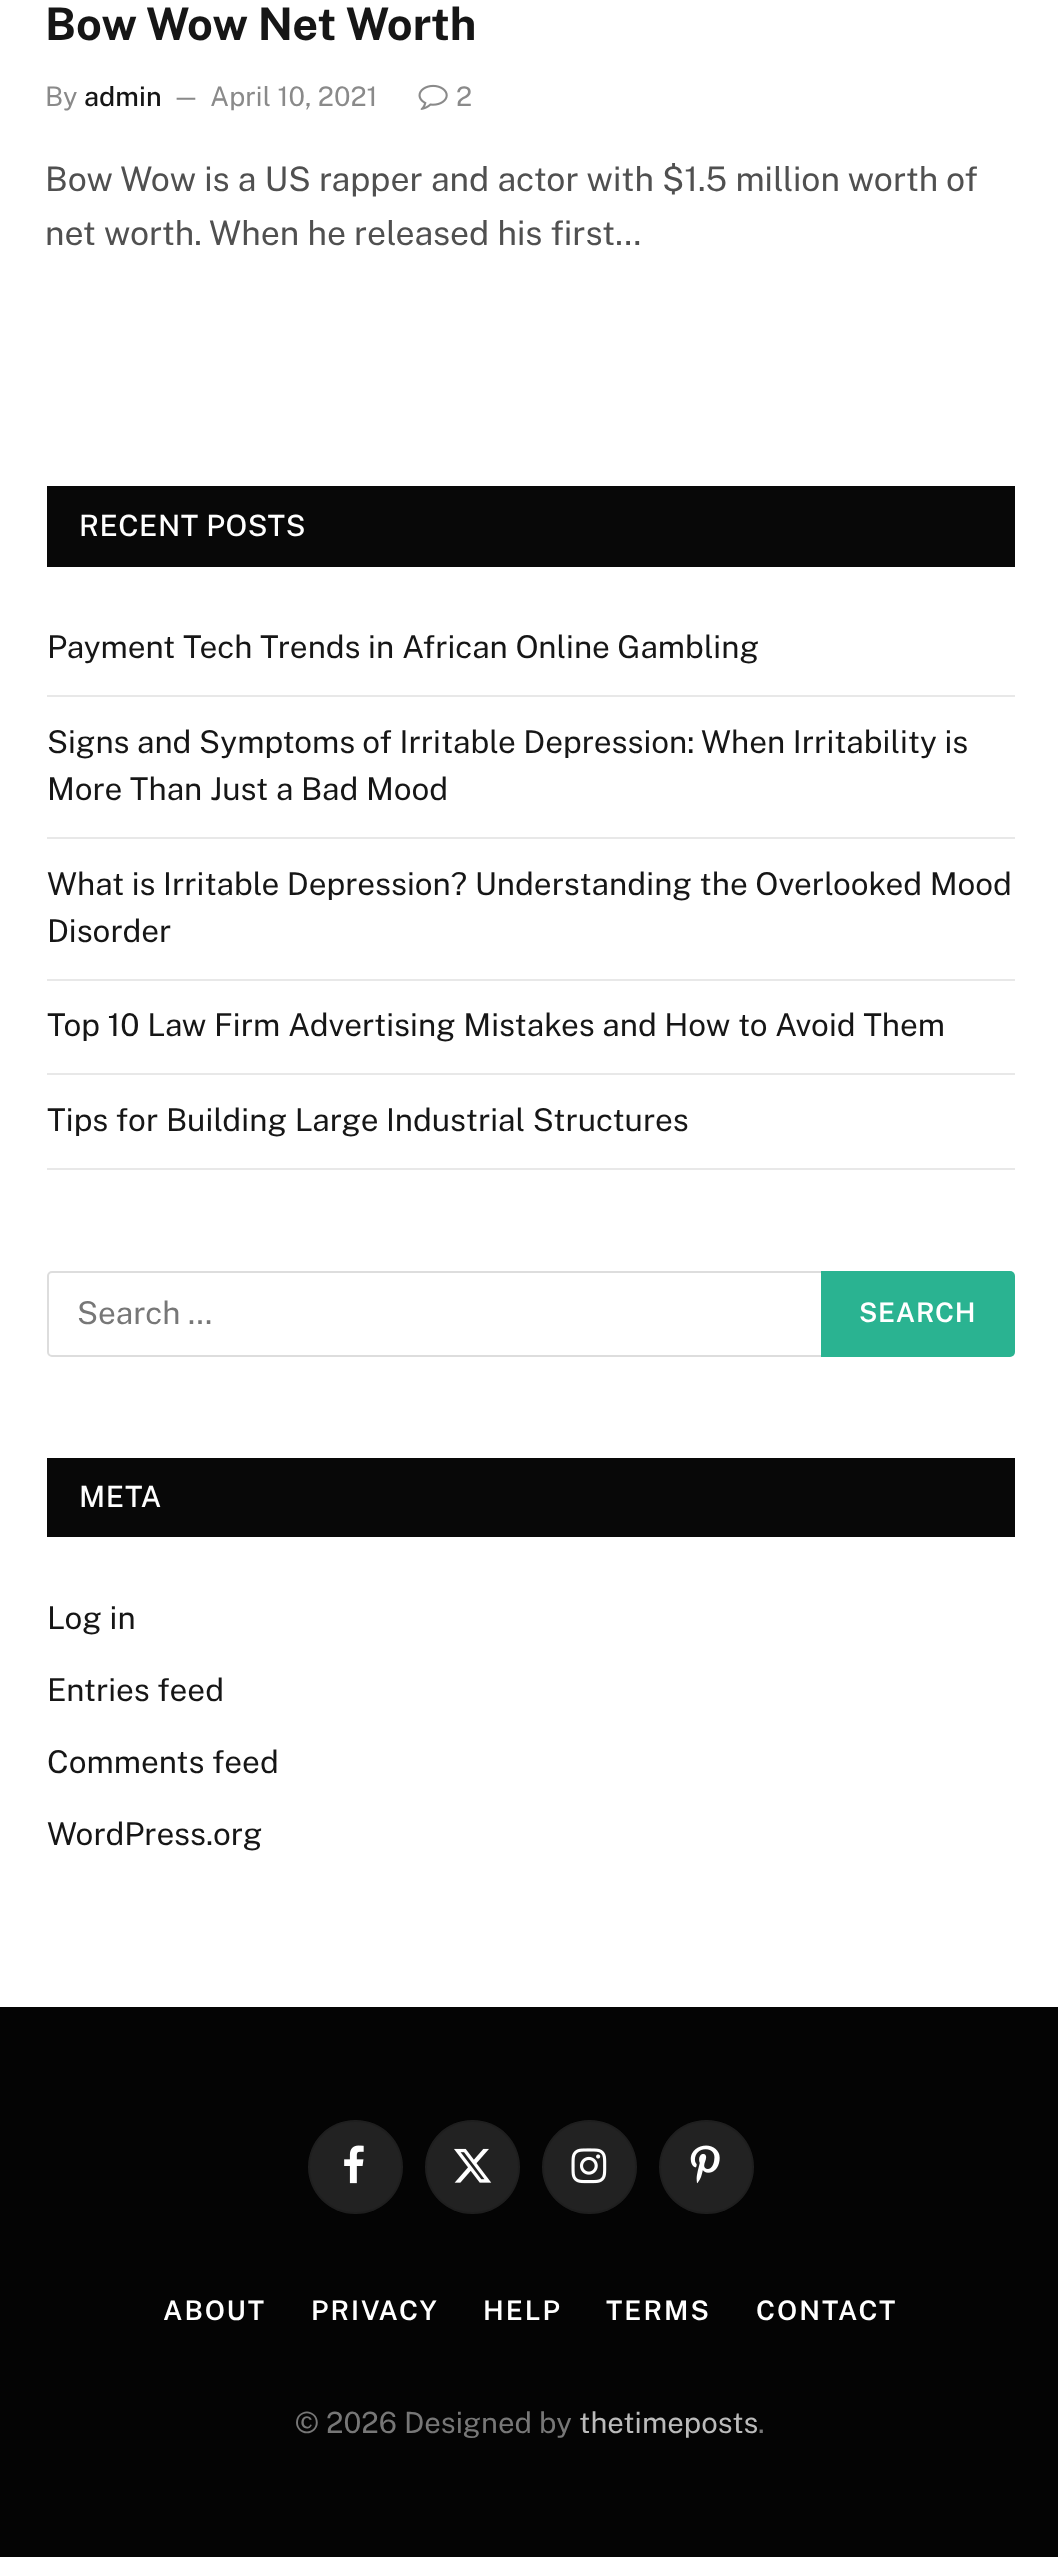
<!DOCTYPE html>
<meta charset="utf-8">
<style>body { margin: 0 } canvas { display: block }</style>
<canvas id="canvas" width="1058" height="2557"></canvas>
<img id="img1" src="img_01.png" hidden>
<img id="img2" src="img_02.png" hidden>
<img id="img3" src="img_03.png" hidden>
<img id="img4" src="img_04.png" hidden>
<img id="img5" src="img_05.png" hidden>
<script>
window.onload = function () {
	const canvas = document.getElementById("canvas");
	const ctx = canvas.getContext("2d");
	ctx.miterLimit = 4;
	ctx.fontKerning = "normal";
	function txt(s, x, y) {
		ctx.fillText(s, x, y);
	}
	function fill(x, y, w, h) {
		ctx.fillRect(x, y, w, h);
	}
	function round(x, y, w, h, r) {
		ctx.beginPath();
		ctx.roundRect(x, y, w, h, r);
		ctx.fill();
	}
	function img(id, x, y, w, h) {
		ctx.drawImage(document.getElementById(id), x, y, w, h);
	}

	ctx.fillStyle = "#FFFFFF";
	fill(0, 0, 1058, 2557);
	img("img1", 418, 84, 30, 26);
	ctx.fillStyle = "#080808";
	fill(47, 486, 968, 81);
	ctx.fillStyle = "#E8E8E8";
	fill(47, 695, 968, 2);
	fill(47, 837, 968, 2);
	fill(47, 979, 968, 2);
	fill(47, 1073, 968, 2);
	fill(47, 1168, 968, 2);
	ctx.beginPath();
	ctx.roundRect(48, 1272, 777, 84, 4);
	ctx.strokeStyle = "#DDDDDD";
	ctx.lineWidth = 2;
	ctx.stroke();
	ctx.fillStyle = "#2AB391";
	ctx.beginPath();
	ctx.roundRect(821, 1271, 194, 86, [0, 5, 5, 0]);
	ctx.fill();
	ctx.fillStyle = "#080808";
	fill(47, 1458, 968, 79);
	ctx.fillStyle = "#040404";
	fill(0, 2007, 1058, 550);
	ctx.fillStyle = "#222222";
	round(308, 2120, 95, 94, 47);
	ctx.beginPath();
	ctx.roundRect(309, 2121, 93, 92, 46);
	ctx.strokeStyle = "rgba(0, 0, 0, 0.09)";
	ctx.stroke();
	img("img2", 344, 2145, 20, 39);
	round(425, 2120, 95, 94, 47);
	ctx.beginPath();
	ctx.roundRect(426, 2121, 93, 92, 46);
	ctx.stroke();
	img("img3", 454, 2148, 38, 35);
	round(542, 2120, 95, 94, 47);
	ctx.beginPath();
	ctx.roundRect(543, 2121, 93, 92, 46);
	ctx.stroke();
	img("img4", 571, 2148, 36, 36);
	round(659, 2120, 95, 94, 47);
	ctx.beginPath();
	ctx.roundRect(660, 2121, 93, 92, 46);
	ctx.stroke();
	img("img5", 690, 2145, 30, 39);
	ctx.font = "bold 45px Public Sans";
	ctx.fillStyle = "#161616";
	txt("Bow Wow Net Worth", 45, 40);
	ctx.font = "27px Public Sans";
	ctx.fillStyle = "#8A8A8A";
	txt("By", 45, 106);
	ctx.font = "500 27px Public Sans";
	ctx.fillStyle = "#161616";
	txt("admin", 84, 106);
	ctx.font = "25px Public Sans";
	ctx.fillStyle = "#8A8A8A";
	txt("—", 172, 105);
	ctx.font = "27px Public Sans";
	txt("April 10, 2021", 210, 106);
	txt("2", 456, 106);
	ctx.font = "33.75px Public Sans";
	ctx.fillStyle = "#505050";
	txt("Bow Wow is a US rapper and actor with $1.5 million worth of", 45, 191);
	txt("net worth. When he released his first…", 45, 245);
	ctx.letterSpacing = "0.5px";
	ctx.font = "500 29.25px Public Sans";
	ctx.fillStyle = "#FFFFFF";
	txt("RECENT POSTS", 79, 536);
	ctx.letterSpacing = "0px";
	ctx.font = "31.5px Public Sans";
	ctx.fillStyle = "#161616";
	txt("Payment Tech Trends in African Online Gambling", 47, 658);
	txt("Signs and Symptoms of Irritable Depression: When Irritability is", 47, 753);
	txt("More Than Just a Bad Mood", 47, 800);
	txt("What is Irritable Depression? Understanding the Overlooked Mood", 47, 895);
	txt("Disorder", 47, 942);
	txt("Top 10 Law Firm Advertising Mistakes and How to Avoid Them", 47, 1036);
	txt("Tips for Building Large Industrial Structures", 47, 1131);
	ctx.fillStyle = "#777777";
	txt("Search …", 77, 1324);
	ctx.letterSpacing = "0.75px";
	ctx.font = "600 27px Public Sans";
	ctx.fillStyle = "#FFFFFF";
	txt("SEARCH", 859, 1322);
	ctx.letterSpacing = "0.5px";
	ctx.font = "500 29.25px Public Sans";
	txt("META", 79, 1507);
	ctx.letterSpacing = "0px";
	ctx.font = "31.5px Public Sans";
	ctx.fillStyle = "#161616";
	txt("Log in", 47, 1629);
	txt("Entries feed", 47, 1701);
	txt("Comments feed", 47, 1773);
	txt("WordPress.org", 47, 1845);
	ctx.letterSpacing = "2px";
	ctx.font = "600 27px Public Sans";
	ctx.fillStyle = "#FFFFFF";
	txt("ABOUT", 163, 2320);
	txt("PRIVACY", 311, 2320);
	txt("HELP", 483, 2320);
	txt("TERMS", 606, 2320);
	txt("CONTACT", 756, 2320);
	ctx.letterSpacing = "0px";
	ctx.font = "29.25px Public Sans";
	ctx.fillStyle = "#777777";
	txt("© 2026 Designed by", 295, 2433);
	ctx.fillStyle = "#BBBBBB";
	txt("thetimeposts", 579, 2433);
	ctx.fillStyle = "#777777";
	txt(".", 758, 2433);
};
</script>
